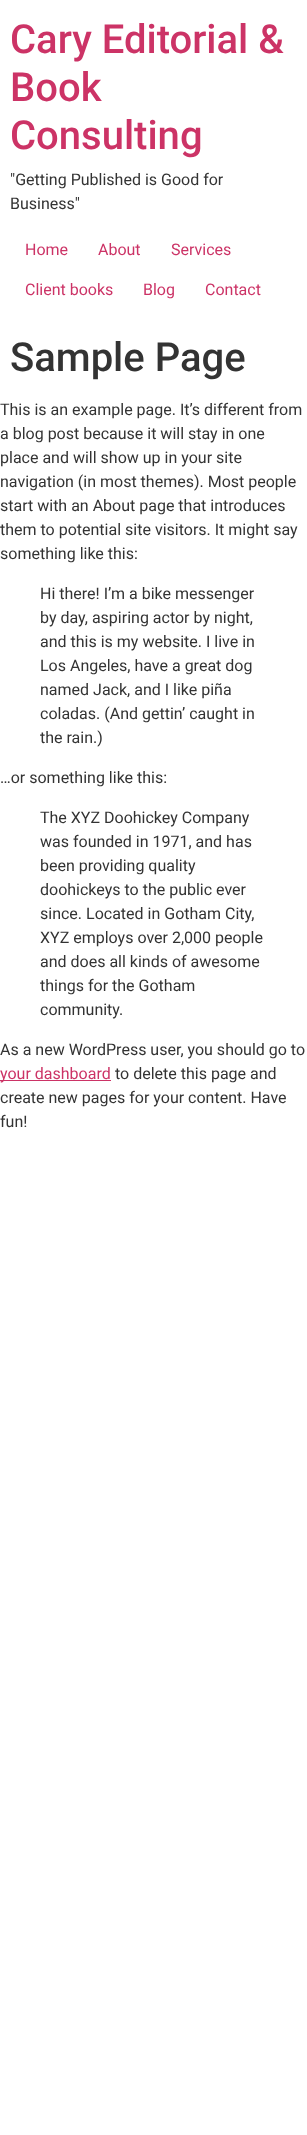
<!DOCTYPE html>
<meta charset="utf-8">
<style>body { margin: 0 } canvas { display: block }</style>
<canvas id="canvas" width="307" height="2135"></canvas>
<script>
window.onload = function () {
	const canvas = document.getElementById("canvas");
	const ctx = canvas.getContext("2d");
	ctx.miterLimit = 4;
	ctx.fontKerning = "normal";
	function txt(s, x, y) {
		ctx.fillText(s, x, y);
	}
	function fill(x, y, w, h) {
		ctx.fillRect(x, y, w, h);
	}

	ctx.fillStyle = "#FFFFFF";
	fill(0, 0, 307, 2135);
	ctx.fillStyle = "#CC3366";
	fill(0, 1080, 111, 1);
	ctx.font = "500 40px Roboto";
	txt("Cary Editorial &", 10, 53);
	txt("Book", 10, 101);
	txt("Consulting", 10, 149);
	ctx.font = "16px Roboto";
	ctx.fillStyle = "#333333";
	txt("\"Getting Published is Good for", 10, 185);
	txt("Business\"", 10, 209);
	ctx.fillStyle = "#CC3366";
	txt("Home", 25, 255);
	txt("About", 98, 255);
	txt("Services", 171, 255);
	txt("Client books", 25, 295);
	txt("Blog", 143, 295);
	txt("Contact", 205, 295);
	ctx.font = "500 40px Roboto";
	ctx.fillStyle = "#333333";
	txt("Sample Page", 10, 371);
	ctx.font = "16px Roboto";
	txt("This is an example page. It’s different from", 0, 415);
	txt("a blog post because it will stay in one", 0, 439);
	txt("place and will show up in your site", 0, 463);
	txt("navigation (in most themes). Most people", 0, 487);
	txt("start with an About page that introduces", 0, 511);
	txt("them to potential site visitors. It might say", 0, 535);
	txt("something like this:", 0, 559);
	txt("Hi there! I’m a bike messenger", 40, 599);
	txt("by day, aspiring actor by night,", 40, 623);
	txt("and this is my website. I live in", 40, 647);
	txt("Los Angeles, have a great dog", 40, 671);
	txt("named Jack, and I like piña", 40, 695);
	txt("coladas. (And gettin’ caught in", 40, 719);
	txt("the rain.)", 40, 743);
	txt("…or something like this:", 0, 783);
	txt("The XYZ Doohickey Company", 40, 823);
	txt("was founded in 1971, and has", 40, 847);
	txt("been providing quality", 40, 871);
	txt("doohickeys to the public ever", 40, 895);
	txt("since. Located in Gotham City,", 40, 919);
	txt("XYZ employs over 2,000 people", 40, 943);
	txt("and does all kinds of awesome", 40, 967);
	txt("things for the Gotham", 40, 991);
	txt("community.", 40, 1015);
	txt("As a new WordPress user, you should go to", 0, 1055);
	ctx.fillStyle = "#CC3366";
	txt("your dashboard", 0, 1079);
	ctx.fillStyle = "#333333";
	txt("to delete this page and", 115, 1079);
	txt("create new pages for your content. Have", 0, 1103);
	txt("fun!", 0, 1127);
};
</script>
